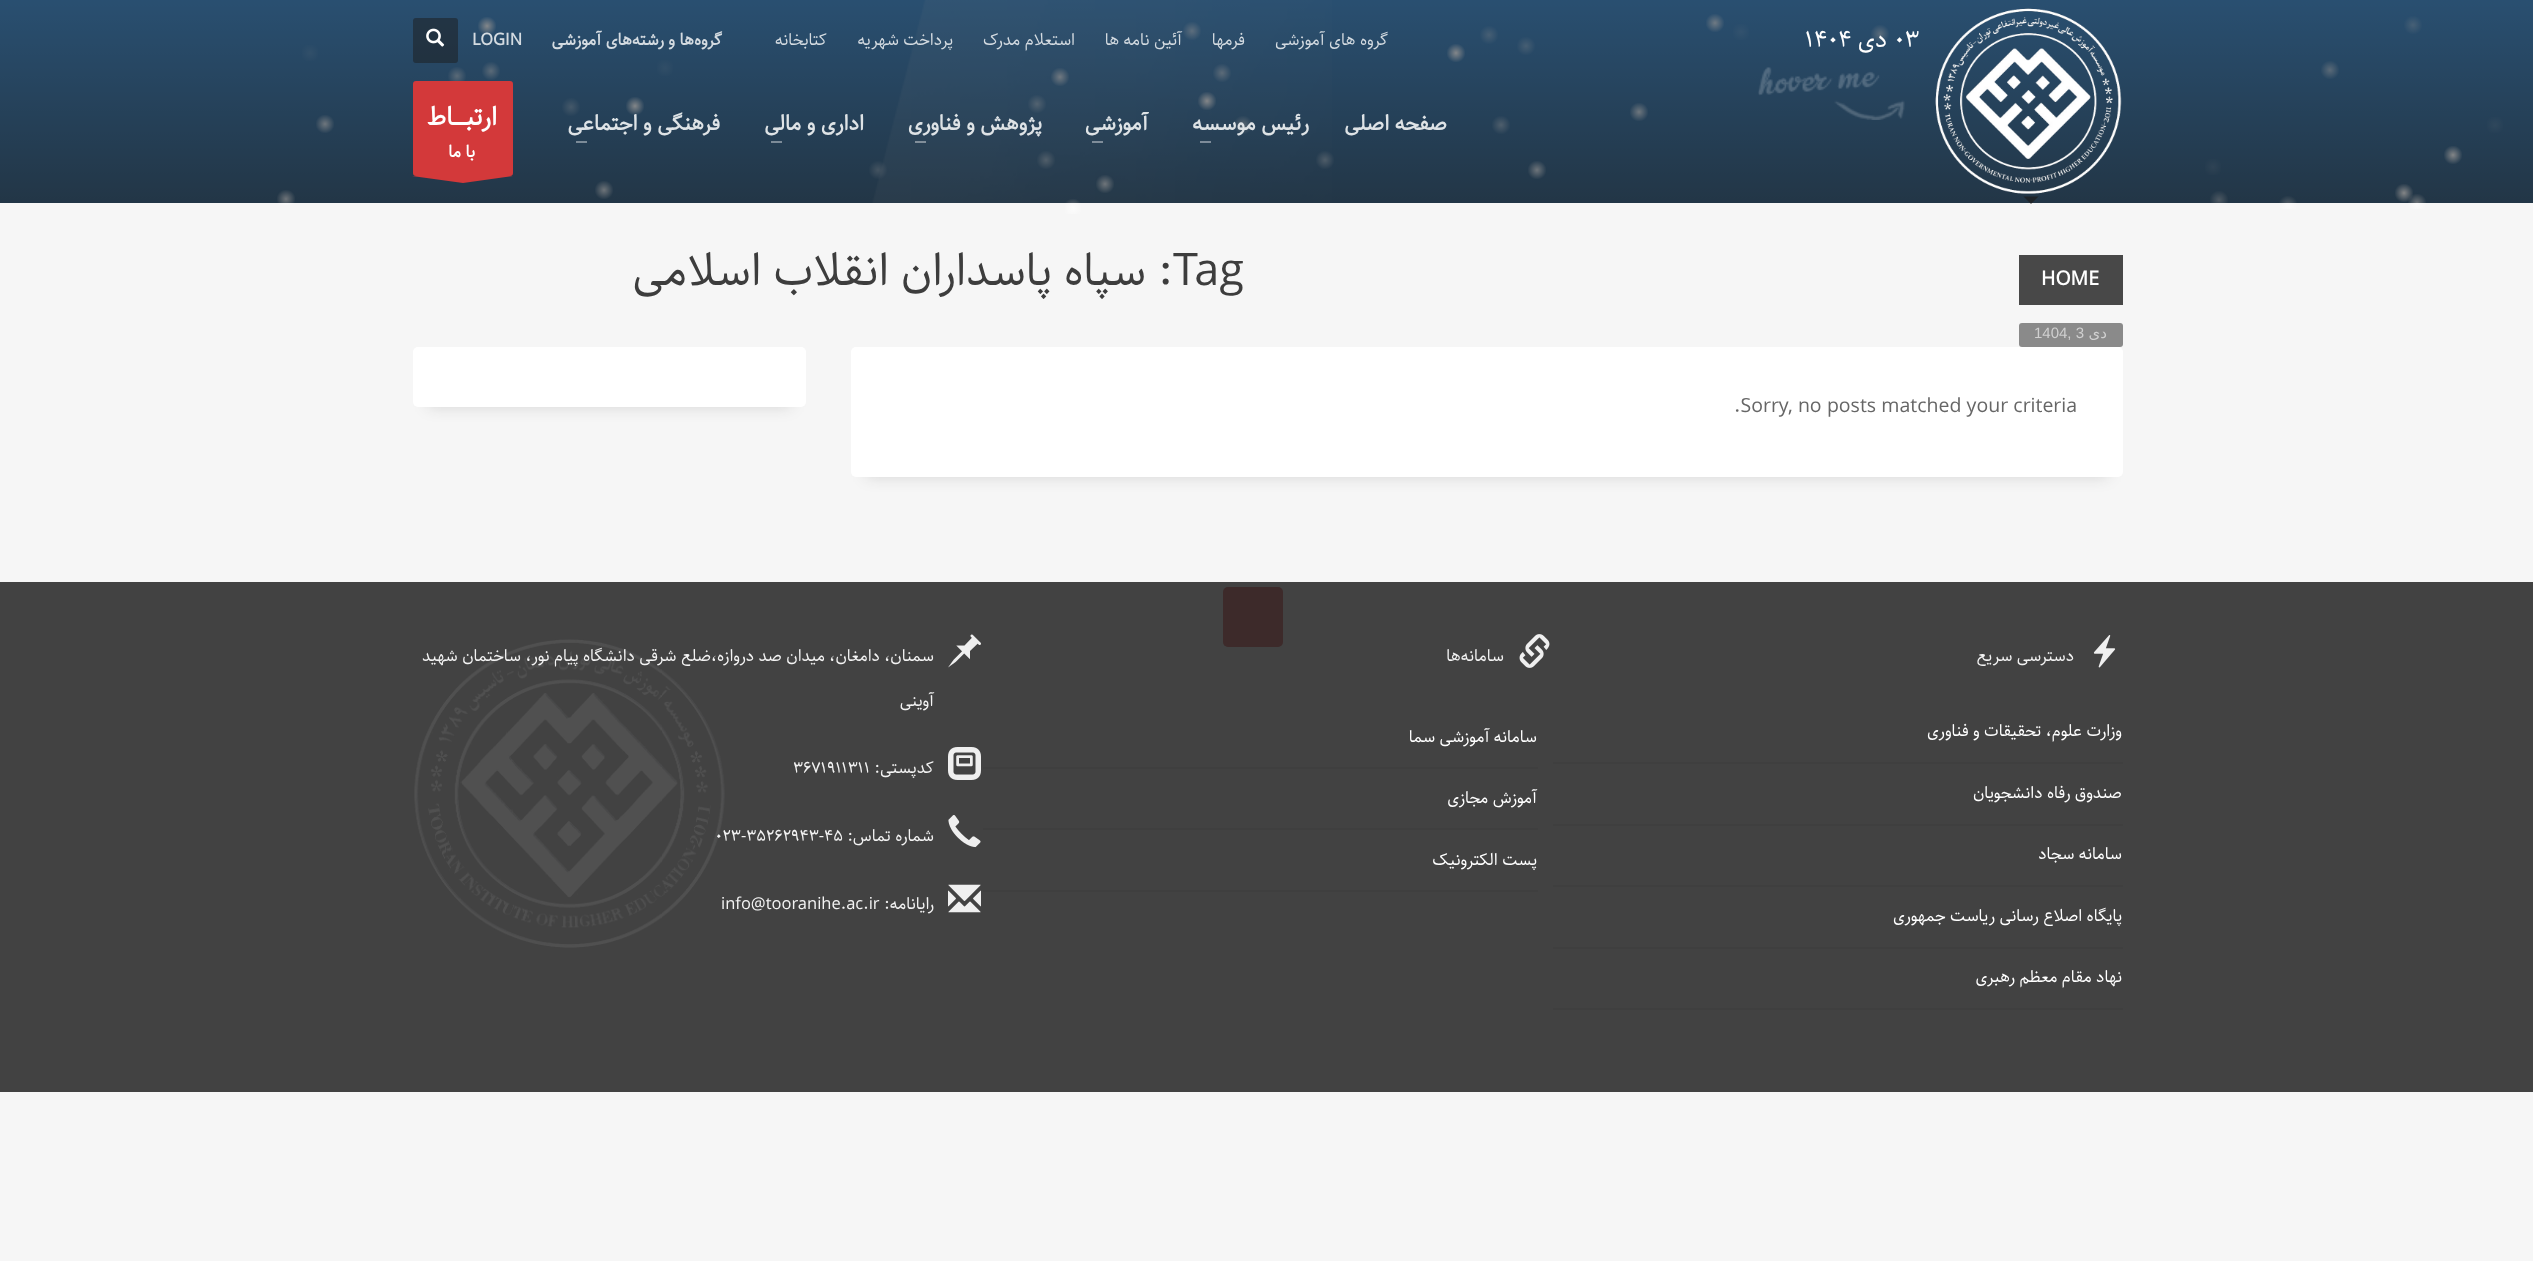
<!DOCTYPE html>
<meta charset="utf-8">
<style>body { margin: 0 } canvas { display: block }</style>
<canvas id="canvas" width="2533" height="1261"></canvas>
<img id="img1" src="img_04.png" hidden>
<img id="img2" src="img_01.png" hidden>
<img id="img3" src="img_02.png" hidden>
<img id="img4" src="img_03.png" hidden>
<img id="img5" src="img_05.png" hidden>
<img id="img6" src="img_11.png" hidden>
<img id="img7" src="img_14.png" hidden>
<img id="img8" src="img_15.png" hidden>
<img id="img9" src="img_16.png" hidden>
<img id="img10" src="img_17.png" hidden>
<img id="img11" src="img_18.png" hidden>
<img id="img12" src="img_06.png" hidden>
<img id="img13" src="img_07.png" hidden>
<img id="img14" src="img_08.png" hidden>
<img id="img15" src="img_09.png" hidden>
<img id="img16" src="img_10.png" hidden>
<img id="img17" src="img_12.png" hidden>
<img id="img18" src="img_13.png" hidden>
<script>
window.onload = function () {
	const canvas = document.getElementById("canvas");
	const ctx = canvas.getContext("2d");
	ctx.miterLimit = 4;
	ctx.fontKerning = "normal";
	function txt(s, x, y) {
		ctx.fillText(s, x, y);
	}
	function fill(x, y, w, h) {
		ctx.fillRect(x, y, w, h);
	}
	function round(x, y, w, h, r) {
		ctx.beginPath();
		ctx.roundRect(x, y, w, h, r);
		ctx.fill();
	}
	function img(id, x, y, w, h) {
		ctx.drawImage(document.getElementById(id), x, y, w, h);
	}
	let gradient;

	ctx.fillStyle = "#F6F6F6";
	fill(0, 0, 2533, 1261);
	gradient = ctx.createLinearGradient(1267, 0, 1267, 203);
	gradient.addColorStop(0, "#3783C6");
	gradient.addColorStop(1, "#295071");
	ctx.fillStyle = gradient;
	fill(0, 0, 2533, 203);
	img("img1", 872, 0, 460, 203);
	gradient = ctx.createRadialGradient(2413, 25, 0, 2413, 25, 16);
	gradient.addColorStop(0, "rgba(255, 255, 255, 0.3)");
	gradient.addColorStop(0.6, "rgba(255, 255, 255, 0)");
	ctx.fillStyle = gradient;
	fill(2404, 16, 18, 18);
	gradient = ctx.createRadialGradient(1880, 34, 0, 1880, 34, 16);
	gradient.addColorStop(0, "rgba(255, 255, 255, 0.5)");
	gradient.addColorStop(0.6, "rgba(255, 255, 255, 0)");
	ctx.fillStyle = gradient;
	fill(1871, 25, 18, 18);
	gradient = ctx.createRadialGradient(1741, 32, 0, 1741, 32, 16);
	gradient.addColorStop(0, "rgba(255, 255, 255, 0.1)");
	gradient.addColorStop(0.6, "rgba(255, 255, 255, 0)");
	ctx.fillStyle = gradient;
	fill(1733, 24, 16, 16);
	gradient = ctx.createRadialGradient(1715, 23, 0, 1715, 23, 16);
	gradient.addColorStop(0, "rgba(255, 255, 255, 0.7)");
	gradient.addColorStop(0.6, "rgba(255, 255, 255, 0)");
	ctx.fillStyle = gradient;
	fill(1706, 14, 18, 18);
	gradient = ctx.createRadialGradient(1489, 35, 0, 1489, 35, 16);
	gradient.addColorStop(0, "rgba(255, 255, 255, 0.3)");
	gradient.addColorStop(0.6, "rgba(255, 255, 255, 0)");
	ctx.fillStyle = gradient;
	fill(1480, 26, 18, 18);
	gradient = ctx.createRadialGradient(1192, 31, 0, 1192, 31, 16);
	gradient.addColorStop(0, "rgba(255, 255, 255, 0.5)");
	gradient.addColorStop(0.6, "rgba(255, 255, 255, 0)");
	ctx.fillStyle = gradient;
	fill(1183, 22, 18, 18);
	gradient = ctx.createRadialGradient(487, 26, 0, 487, 26, 16);
	gradient.addColorStop(0, "rgba(255, 255, 255, 0.9)");
	gradient.addColorStop(0.6, "rgba(255, 255, 255, 0)");
	ctx.fillStyle = gradient;
	fill(478, 17, 18, 18);
	gradient = ctx.createRadialGradient(1526, 46, 0, 1526, 46, 16);
	gradient.addColorStop(0, "rgba(255, 255, 255, 0.3)");
	gradient.addColorStop(0.6, "rgba(255, 255, 255, 0)");
	ctx.fillStyle = gradient;
	fill(1517, 37, 18, 18);
	gradient = ctx.createRadialGradient(1456, 53, 0, 1456, 53, 16);
	gradient.addColorStop(0, "rgba(255, 255, 255, 0.9)");
	gradient.addColorStop(0.6, "rgba(255, 255, 255, 0)");
	ctx.fillStyle = gradient;
	fill(1447, 44, 18, 18);
	gradient = ctx.createRadialGradient(310, 53, 0, 310, 53, 16);
	gradient.addColorStop(0, "rgba(255, 255, 255, 0.1)");
	gradient.addColorStop(0.6, "rgba(255, 255, 255, 0)");
	ctx.fillStyle = gradient;
	fill(302, 45, 16, 16);
	gradient = ctx.createRadialGradient(2330, 70, 0, 2330, 70, 16);
	gradient.addColorStop(0, "rgba(255, 255, 255, 0.5)");
	gradient.addColorStop(0.6, "rgba(255, 255, 255, 0)");
	ctx.fillStyle = gradient;
	fill(2321, 61, 18, 18);
	gradient = ctx.createRadialGradient(1222, 73, 0, 1222, 73, 16);
	gradient.addColorStop(0, "rgba(255, 255, 255, 0.5)");
	gradient.addColorStop(0.6, "rgba(255, 255, 255, 0)");
	ctx.fillStyle = gradient;
	fill(1213, 64, 18, 18);
	gradient = ctx.createRadialGradient(1060, 77, 0, 1060, 77, 16);
	gradient.addColorStop(0, "rgba(255, 255, 255, 0.7)");
	gradient.addColorStop(0.6, "rgba(255, 255, 255, 0)");
	ctx.fillStyle = gradient;
	fill(1051, 68, 18, 18);
	gradient = ctx.createRadialGradient(665, 68, 0, 665, 68, 16);
	gradient.addColorStop(0, "rgba(255, 255, 255, 0.1)");
	gradient.addColorStop(0.6, "rgba(255, 255, 255, 0)");
	ctx.fillStyle = gradient;
	fill(657, 60, 16, 16);
	gradient = ctx.createRadialGradient(491, 71, 0, 491, 71, 16);
	gradient.addColorStop(0, "rgba(255, 255, 255, 0.5)");
	gradient.addColorStop(0.6, "rgba(255, 255, 255, 0)");
	ctx.fillStyle = gradient;
	fill(482, 62, 18, 18);
	gradient = ctx.createRadialGradient(457, 76, 0, 457, 76, 16);
	gradient.addColorStop(0, "rgba(255, 255, 255, 0.5)");
	gradient.addColorStop(0.6, "rgba(255, 255, 255, 0)");
	ctx.fillStyle = gradient;
	fill(448, 67, 18, 14);
	gradient = ctx.createRadialGradient(1639, 112, 0, 1639, 112, 16);
	gradient.addColorStop(0, "rgba(255, 255, 255, 0.7)");
	gradient.addColorStop(0.6, "rgba(255, 255, 255, 0)");
	ctx.fillStyle = gradient;
	fill(1630, 103, 18, 18);
	gradient = ctx.createRadialGradient(1207, 101, 0, 1207, 101, 16);
	gradient.addColorStop(0, "rgba(255, 255, 255, 0.9)");
	gradient.addColorStop(0.6, "rgba(255, 255, 255, 0)");
	ctx.fillStyle = gradient;
	fill(1198, 92, 18, 18);
	gradient = ctx.createRadialGradient(1037, 104, 0, 1037, 104, 16);
	gradient.addColorStop(0, "rgba(255, 255, 255, 0.4)");
	gradient.addColorStop(0.6, "rgba(255, 255, 255, 0)");
	ctx.fillStyle = gradient;
	fill(1028, 95, 18, 18);
	gradient = ctx.createRadialGradient(635, 106, 0, 635, 106, 16);
	gradient.addColorStop(0, "rgba(255, 255, 255, 0.9)");
	gradient.addColorStop(0.6, "rgba(255, 255, 255, 0)");
	ctx.fillStyle = gradient;
	fill(626, 97, 18, 18);
	gradient = ctx.createRadialGradient(571, 107, 0, 571, 107, 16);
	gradient.addColorStop(0, "rgba(255, 255, 255, 0.3)");
	gradient.addColorStop(0.6, "rgba(255, 255, 255, 0)");
	ctx.fillStyle = gradient;
	fill(562, 98, 18, 18);
	gradient = ctx.createRadialGradient(2495, 125, 0, 2495, 125, 16);
	gradient.addColorStop(0, "rgba(255, 255, 255, 0.1)");
	gradient.addColorStop(0.6, "rgba(255, 255, 255, 0)");
	ctx.fillStyle = gradient;
	fill(2487, 117, 16, 16);
	gradient = ctx.createRadialGradient(1501, 125, 0, 1501, 125, 16);
	gradient.addColorStop(0, "rgba(255, 255, 255, 0.4)");
	gradient.addColorStop(0.6, "rgba(255, 255, 255, 0)");
	ctx.fillStyle = gradient;
	fill(1492, 116, 18, 18);
	gradient = ctx.createRadialGradient(1243, 125, 0, 1243, 125, 16);
	gradient.addColorStop(0, "rgba(255, 255, 255, 0.5)");
	gradient.addColorStop(0.6, "rgba(255, 255, 255, 0)");
	ctx.fillStyle = gradient;
	fill(1234, 116, 18, 18);
	gradient = ctx.createRadialGradient(325, 124, 0, 325, 124, 16);
	gradient.addColorStop(0, "rgba(255, 255, 255, 0.7)");
	gradient.addColorStop(0.6, "rgba(255, 255, 255, 0)");
	ctx.fillStyle = gradient;
	fill(316, 115, 18, 18);
	gradient = ctx.createRadialGradient(2453, 155, 0, 2453, 155, 16);
	gradient.addColorStop(0, "rgba(255, 255, 255, 0.9)");
	gradient.addColorStop(0.6, "rgba(255, 255, 255, 0)");
	ctx.fillStyle = gradient;
	fill(2444, 146, 18, 18);
	gradient = ctx.createRadialGradient(2213, 167, 0, 2213, 167, 16);
	gradient.addColorStop(0, "rgba(255, 255, 255, 0.1)");
	gradient.addColorStop(0.6, "rgba(255, 255, 255, 0)");
	ctx.fillStyle = gradient;
	fill(2205, 159, 16, 16);
	gradient = ctx.createRadialGradient(1537, 170, 0, 1537, 170, 16);
	gradient.addColorStop(0, "rgba(255, 255, 255, 0.7)");
	gradient.addColorStop(0.6, "rgba(255, 255, 255, 0)");
	ctx.fillStyle = gradient;
	fill(1528, 161, 18, 18);
	gradient = ctx.createRadialGradient(1325, 160, 0, 1325, 160, 16);
	gradient.addColorStop(0, "rgba(255, 255, 255, 0.4)");
	gradient.addColorStop(0.6, "rgba(255, 255, 255, 0)");
	ctx.fillStyle = gradient;
	fill(1316, 151, 18, 18);
	gradient = ctx.createRadialGradient(1046, 160, 0, 1046, 160, 16);
	gradient.addColorStop(0, "rgba(255, 255, 255, 0.4)");
	gradient.addColorStop(0.6, "rgba(255, 255, 255, 0)");
	ctx.fillStyle = gradient;
	fill(1037, 151, 18, 18);
	gradient = ctx.createRadialGradient(878, 170, 0, 878, 170, 16);
	gradient.addColorStop(0, "rgba(255, 255, 255, 0.3)");
	gradient.addColorStop(0.6, "rgba(255, 255, 255, 0)");
	ctx.fillStyle = gradient;
	fill(869, 161, 18, 18);
	gradient = ctx.createRadialGradient(2417, 203, 0, 2417, 203, 16);
	gradient.addColorStop(0, "rgba(255, 255, 255, 0.7)");
	gradient.addColorStop(0.6, "rgba(255, 255, 255, 0)");
	ctx.fillStyle = gradient;
	fill(2408, 194, 18, 15);
	gradient = ctx.createRadialGradient(2404, 193, 0, 2404, 193, 16);
	gradient.addColorStop(0, "rgba(255, 255, 255, 0.9)");
	gradient.addColorStop(0.6, "rgba(255, 255, 255, 0)");
	ctx.fillStyle = gradient;
	fill(2395, 184, 18, 18);
	gradient = ctx.createRadialGradient(2288, 205, 0, 2288, 205, 16);
	gradient.addColorStop(0, "rgba(255, 255, 255, 0.5)");
	gradient.addColorStop(0.6, "rgba(255, 255, 255, 0)");
	ctx.fillStyle = gradient;
	fill(2279, 196, 18, 13);
	gradient = ctx.createRadialGradient(2219, 200, 0, 2219, 200, 16);
	gradient.addColorStop(0, "rgba(255, 255, 255, 0.4)");
	gradient.addColorStop(0.6, "rgba(255, 255, 255, 0)");
	ctx.fillStyle = gradient;
	fill(2210, 191, 18, 12);
	gradient = ctx.createRadialGradient(1105, 184, 0, 1105, 184, 16);
	gradient.addColorStop(0, "rgba(255, 255, 255, 0.7)");
	gradient.addColorStop(0.6, "rgba(255, 255, 255, 0)");
	ctx.fillStyle = gradient;
	fill(1096, 175, 18, 18);
	gradient = ctx.createRadialGradient(1073, 208, 0, 1073, 208, 16);
	gradient.addColorStop(0, "rgba(255, 255, 255, 0.7)");
	gradient.addColorStop(0.6, "rgba(255, 255, 255, 0)");
	ctx.fillStyle = gradient;
	fill(1065, 199, 16, 15);
	gradient = ctx.createRadialGradient(604, 190, 0, 604, 190, 16);
	gradient.addColorStop(0, "rgba(255, 255, 255, 0.7)");
	gradient.addColorStop(0.6, "rgba(255, 255, 255, 0)");
	ctx.fillStyle = gradient;
	fill(595, 181, 18, 18);
	gradient = ctx.createRadialGradient(286, 199, 0, 286, 199, 16);
	gradient.addColorStop(0, "rgba(255, 255, 255, 0.7)");
	gradient.addColorStop(0.6, "rgba(255, 255, 255, 0)");
	ctx.fillStyle = gradient;
	fill(277, 190, 18, 15);
	ctx.fillStyle = "rgba(28, 28, 28, 0.5)";
	fill(0, 0, 2533, 203);
	img("img2", 1935, 8, 187, 186);
	ctx.fillStyle = "rgba(28, 28, 28, 0.7)";
	ctx.beginPath();
	ctx.moveTo(2023.5, 196.5);
	ctx.lineTo(2038.5, 196.5);
	ctx.lineTo(2031, 204);
	ctx.closePath();
	ctx.fill();
	img("img3", 1758, 67, 147, 53);
	ctx.fillStyle = "rgba(28, 28, 28, 0.5)";
	round(413, 18, 45, 45, 3);
	img("img4", 426, 28, 19, 19);
	ctx.fillStyle = "#7E8C9A";
	fill(1200, 141, 11, 2);
	ctx.fillStyle = "#7F8D9A";
	fill(1092, 141, 11, 2);
	ctx.fillStyle = "#818E9A";
	fill(915, 141, 11, 2);
	ctx.fillStyle = "#7C8B98";
	fill(771, 141, 11, 2);
	fill(576, 141, 11, 2);
	ctx.fillStyle = "#D3393A";
	round(413, 81, 100, 95, 3);
	ctx.beginPath();
	ctx.moveTo(513, 176);
	ctx.lineTo(463, 183);
	ctx.lineTo(412, 176);
	ctx.closePath();
	ctx.fill("evenodd");
	ctx.fillStyle = "#484848";
	fill(2019, 255, 104, 50);
	ctx.fillStyle = "#8A8A8A";
	round(2019, 323, 104, 24, 3);
	ctx.fillStyle = "rgba(28, 28, 28, 0.15)";
	ctx.filter = "blur(7.5px)";
	ctx.beginPath();
	ctx.rect(866, 377, 1242, 100);
	ctx.fill();
	ctx.filter = "none";
	ctx.fillStyle = "#FFFFFF";
	round(851, 347, 1272, 130, 5);
	ctx.fillStyle = "rgba(28, 28, 28, 0.15)";
	ctx.filter = "blur(7.5px)";
	ctx.beginPath();
	ctx.rect(428, 377, 363, 30);
	ctx.fill();
	ctx.filter = "none";
	ctx.fillStyle = "#FFFFFF";
	round(413, 347, 393, 60, 5);
	ctx.fillStyle = "#424242";
	fill(0, 582, 2533, 510);
	img("img5", 2093, 635, 23, 33);
	ctx.fillStyle = "#3F3F3F";
	fill(1553, 762, 570, 2);
	fill(1553, 824, 570, 2);
	fill(1553, 885, 570, 2);
	fill(1553, 947, 570, 2);
	fill(1553, 1008, 570, 2);
	img("img6", 1519, 634, 31, 34);
	fill(983, 767, 555, 2);
	fill(983, 828, 555, 2);
	ctx.fillStyle = "rgba(28, 28, 28, 0.05)";
	fill(1527, 799, 4, 4);
	ctx.fillStyle = "#3F3F3F";
	fill(983, 890, 555, 2);
	img("img7", 414, 639, 311, 309);
	img("img8", 948, 634, 33, 34);
	img("img9", 948, 747, 33, 33);
	img("img10", 948, 815, 33, 33);
	img("img11", 948, 884, 33, 29);
	ctx.fillStyle = "#3D2A2A";
	round(1223, 587, 60, 60, 5);
	ctx.font = "24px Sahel";
	ctx.fillStyle = "#FFFFFF";
	txt("03", 1894, 47);
	ctx.direction = "rtl";
	txt("دی", 1887, 47);
	ctx.direction = "ltr";
	txt("1404", 1805, 47);
	ctx.direction = "rtl";
	ctx.font = "16.5px Sahel";
	ctx.fillStyle = "#D4DBE1";
	txt("گروه های آموزشی", 1388, 45);
	txt("فرمها", 1245, 45);
	txt("آئین نامه ها", 1182, 45);
	txt("استعلام مدرک", 1075, 45);
	txt("پرداخت شهریه", 953, 45);
	txt("کتابخانه", 827, 45);
	ctx.font = "bold 16.5px Sahel";
	txt("گروه‌ها و رشته‌های آموزشی", 722, 45);
	ctx.direction = "ltr";
	txt("LOGIN", 472, 45);
	ctx.direction = "rtl";
	ctx.font = "bold 21px Sahel";
	ctx.fillStyle = "#DEE3E6";
	txt("صفحه اصلی", 1447, 130);
	txt("رئیس موسسه", 1309, 130);
	txt("آموزشی", 1148, 130);
	txt("پژوهش و فناوری", 1042, 130);
	txt("اداری و مالی", 864, 130);
	txt("فرهنگی و اجتماعی", 720, 130);
	ctx.font = "bold 25.5px Sahel";
	ctx.fillStyle = "#FFFFFF";
	txt("ارتبــــاط", 497, 125);
	ctx.font = "bold 16.5px Sahel";
	txt("با ما", 475, 157);
	ctx.direction = "ltr";
	ctx.font = "bold 19.5px Sahel";
	txt("HOME", 2041, 285);
	ctx.direction = "rtl";
	ctx.font = "15px DejaVu Sans";
	ctx.fillStyle = "#D0D0D0";
	txt("دی", 2107, 338);
	ctx.direction = "ltr";
	ctx.font = "15px Liberation Sans";
	txt("1404, 3", 2034, 338);
	ctx.font = "45px Sahel";
	ctx.fillStyle = "#3D3D3D";
	txt("Tag", 1173, 285);
	ctx.direction = "rtl";
	txt(": سپاه پاسداران انقلاب اسلامی", 1173, 285);
	ctx.direction = "ltr";
	ctx.font = "19.5px Sahel";
	ctx.fillStyle = "#666666";
	txt(".Sorry, no posts matched your criteria", 1734, 412);
	ctx.direction = "rtl";
	ctx.font = "16.5px Sahel";
	ctx.fillStyle = "#F3F3F3";
	txt("دسترسی سریع", 2074, 661);
	ctx.fillStyle = "#FFFFFF";
	txt("وزارت علوم، تحقیقات و فناوری", 2122, 736);
	img("img12", 2110, 727, 8, 12);
	txt("صندوق رفاه دانشجویان", 2122, 798);
	img("img13", 2111, 792, 7, 6);
	txt("سامانه سجاد", 2122, 859);
	img("img14", 2112, 854, 5, 5);
	txt("پایگاه اصلاع رسانی ریاست جمهوری", 2122, 921);
	img("img15", 2110, 912, 5, 11);
	txt("نهاد مقام معظم رهبری", 2122, 982);
	img("img16", 2110, 975, 5, 10);
	ctx.fillStyle = "#F3F3F3";
	txt("سامانه‌ها", 1504, 661);
	ctx.fillStyle = "#FFFFFF";
	txt("سامانه آموزشی سما", 1537, 742);
	img("img17", 1525, 737, 7, 5);
	txt("آموزش مجازی", 1537, 803);
	txt("پست الکترونیک", 1537, 865);
	img("img18", 1526, 861, 4, 4);
	ctx.fillStyle = "#F3F3F3";
	txt("سمنان، دامغان، میدان صد دروازه،ضلع شرقی دانشگاه پیام نور، ساختمان شهید", 934, 661);
	txt("آوینی", 934, 706);
	txt("کدپستی:", 934, 773);
	ctx.direction = "ltr";
	txt("3671911311", 793, 773);
	ctx.direction = "rtl";
	txt("شماره تماس:", 934, 841);
	ctx.direction = "ltr";
	txt("023-35262943-45", 715, 841);
	ctx.direction = "rtl";
	txt("رایانامه:", 934, 909);
	ctx.direction = "ltr";
	txt("info@tooranihe.ac.ir", 721, 909);
};
</script>
